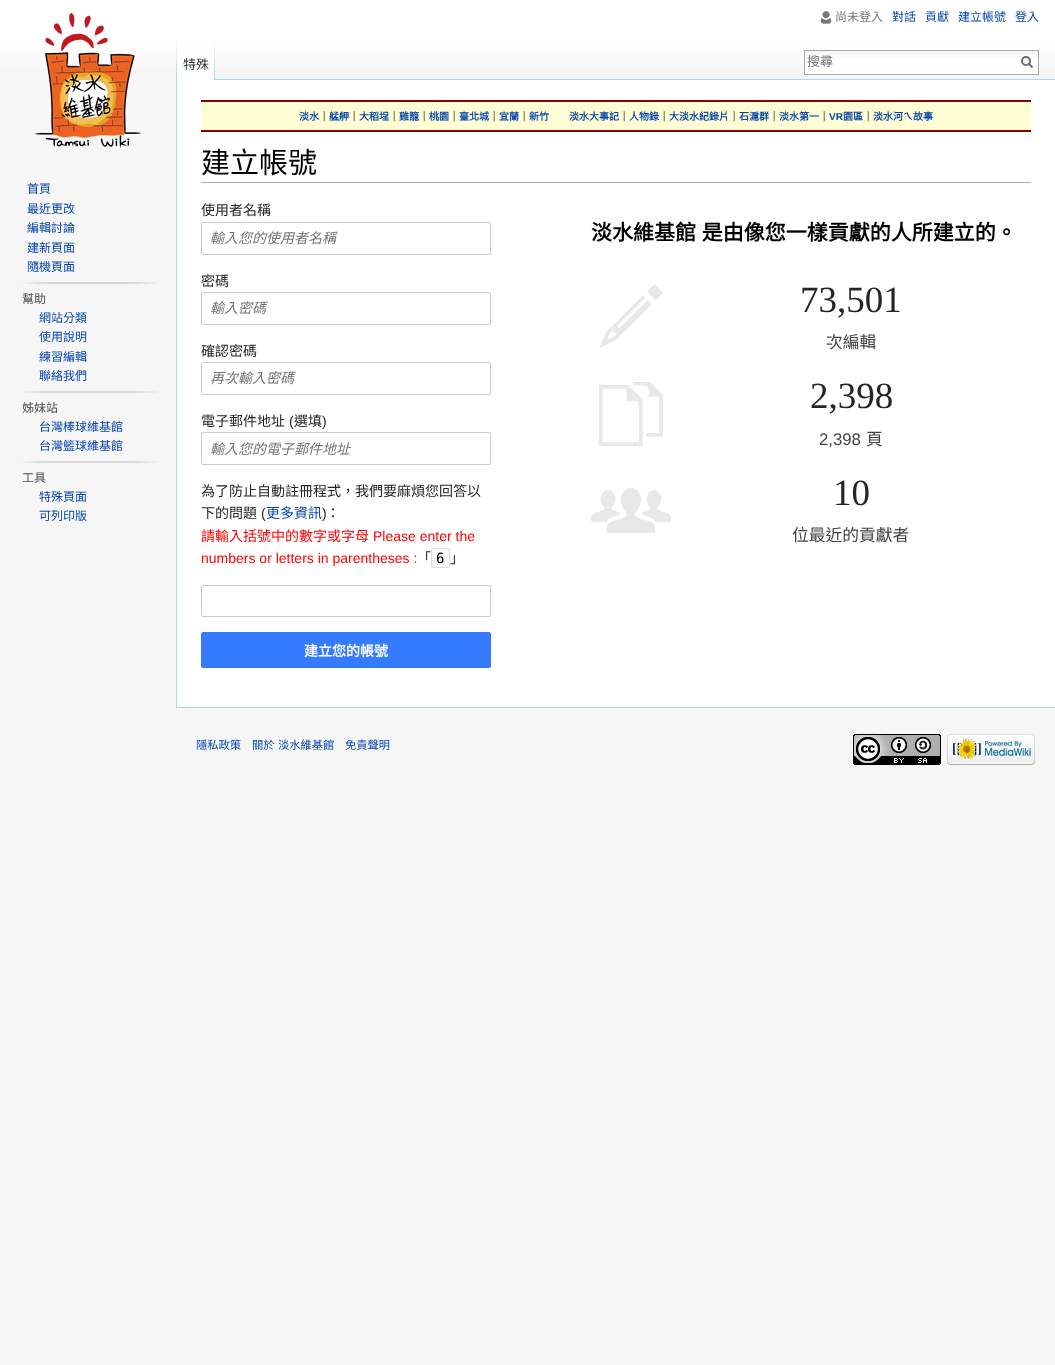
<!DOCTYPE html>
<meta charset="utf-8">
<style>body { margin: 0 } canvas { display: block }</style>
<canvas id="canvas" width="1055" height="1365"></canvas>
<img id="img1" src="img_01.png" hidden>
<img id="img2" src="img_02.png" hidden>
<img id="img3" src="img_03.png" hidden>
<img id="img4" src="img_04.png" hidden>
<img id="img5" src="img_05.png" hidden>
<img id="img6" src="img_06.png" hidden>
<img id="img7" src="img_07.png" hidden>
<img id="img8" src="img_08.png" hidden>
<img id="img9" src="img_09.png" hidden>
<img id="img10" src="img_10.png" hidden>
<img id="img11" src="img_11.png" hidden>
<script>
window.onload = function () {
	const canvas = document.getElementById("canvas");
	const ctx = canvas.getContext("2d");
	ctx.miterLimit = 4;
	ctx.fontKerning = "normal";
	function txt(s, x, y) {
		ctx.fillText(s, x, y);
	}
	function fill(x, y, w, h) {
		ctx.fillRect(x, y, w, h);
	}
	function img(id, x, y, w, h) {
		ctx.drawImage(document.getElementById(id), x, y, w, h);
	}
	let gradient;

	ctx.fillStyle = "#F6F6F6";
	fill(0, 0, 1055, 1365);
	gradient = ctx.createLinearGradient(528, 0, 528, 80);
	gradient.addColorStop(0.5, "#FFFFFF");
	gradient.addColorStop(1, "#F6F6F6");
	ctx.fillStyle = gradient;
	fill(0, 0, 1055, 69);
	img("img1", 820, 11, 12, 13);
	img("img2", 176, 40, 1, 39);
	ctx.fillStyle = "#FFFFFF";
	fill(177, 51, 37, 29);
	img("img3", 214, 40, 1, 40);
	fill(805, 59, 233, 15);
	img("img4", 805, 51, 233, 8);
	ctx.strokeStyle = "#AAAAAA";
	ctx.strokeRect(804.5, 50.5, 234, 24);
	ctx.beginPath();
	ctx.moveTo(1032.5, 67.5);
	ctx.lineTo(1028.5, 63.5);
	ctx.strokeStyle = "#6C6C6C";
	ctx.lineWidth = 2;
	ctx.stroke();
	ctx.beginPath();
	ctx.arc(1026, 61, 4, 0, Math.PI * 2);
	ctx.stroke();
	img("img5", 35, 13, 106, 135);
	img("img6", 22, 282, 135, 2);
	img("img6", 22, 391, 135, 2);
	img("img6", 22, 461, 135, 2);
	fill(177, 80, 878, 627);
	ctx.fillStyle = "#A7D7F9";
	fill(215, 79, 840, 1);
	fill(176, 707, 879, 1);
	fill(176, 79, 1, 629);
	ctx.fillStyle = "#FFFED4";
	fill(201, 102, 830, 28);
	ctx.fillStyle = "#8B0000";
	fill(201, 100, 830, 2);
	fill(201, 130, 830, 2);
	ctx.fillStyle = "#AAAAAA";
	fill(201, 182, 830, 1);
	ctx.beginPath();
	ctx.roundRect(201.5, 222.5, 289, 32, 1.5);
	ctx.strokeStyle = "#CCCCCC";
	ctx.lineWidth = 1;
	ctx.stroke();
	ctx.beginPath();
	ctx.roundRect(201.5, 292.5, 289, 32, 1.5);
	ctx.stroke();
	ctx.beginPath();
	ctx.roundRect(201.5, 362.5, 289, 32, 1.5);
	ctx.stroke();
	ctx.beginPath();
	ctx.roundRect(201.5, 432.5, 289, 32, 1.5);
	ctx.stroke();
	ctx.fillStyle = "#F9F9F9";
	ctx.beginPath();
	ctx.roundRect(431.5, 548.5, 18, 19, 1.5);
	ctx.fill();
	ctx.strokeStyle = "#DDDDDD";
	ctx.stroke();
	ctx.beginPath();
	ctx.roundRect(201.5, 585.5, 289, 31, 1.5);
	ctx.strokeStyle = "#CCCCCC";
	ctx.stroke();
	ctx.fillStyle = "#347BFF";
	ctx.beginPath();
	ctx.roundRect(201.5, 632.5, 289, 35, 1.5);
	ctx.fill();
	ctx.strokeStyle = "#347BFF";
	ctx.stroke();
	img("img7", 599, 284, 64, 64);
	img("img8", 599, 382, 64, 64);
	img("img9", 591, 488, 80, 45);
	img("img10", 853, 734, 88, 31);
	img("img11", 947, 734, 88, 31);
	ctx.font = "12px Noto Sans CJK TC";
	ctx.fillStyle = "#757575";
	txt("尚未登入", 835, 21);
	ctx.fillStyle = "#0645AD";
	txt("對話", 892, 21);
	txt("貢獻", 925, 21);
	txt("建立帳號", 958, 21);
	txt("登入", 1015, 21);
	ctx.font = "13px Noto Sans CJK TC";
	ctx.fillStyle = "#333333";
	txt("特殊", 183, 69);
	ctx.fillStyle = "#757575";
	txt("搜尋", 807, 66);
	ctx.font = "12px Noto Sans CJK TC";
	ctx.fillStyle = "#0645AD";
	txt("首頁", 27, 193);
	txt("最近更改", 27, 213);
	txt("編輯討論", 27, 232);
	txt("建新頁面", 27, 252);
	txt("隨機頁面", 27, 271);
	ctx.fillStyle = "#4D4D4D";
	txt("幫助", 22, 303);
	ctx.fillStyle = "#0645AD";
	txt("網站分類", 39, 322);
	txt("使用說明", 39, 341);
	txt("練習編輯", 39, 361);
	txt("聯絡我們", 39, 380);
	ctx.fillStyle = "#4D4D4D";
	txt("姊妹站", 22, 412);
	ctx.fillStyle = "#0645AD";
	txt("台灣棒球維基館", 39, 431);
	txt("台灣籃球維基館", 39, 450);
	ctx.fillStyle = "#4D4D4D";
	txt("工具", 22, 482);
	ctx.fillStyle = "#0645AD";
	txt("特殊頁面", 39, 501);
	txt("可列印版", 39, 520);
	ctx.font = "bold 10px Noto Sans CJK TC";
	txt("淡水", 299, 120);
	ctx.fillStyle = "#252525";
	txt("｜", 319, 120);
	ctx.fillStyle = "#0645AD";
	txt("艋舺", 329, 120);
	ctx.fillStyle = "#252525";
	txt("｜", 349, 120);
	ctx.fillStyle = "#0645AD";
	txt("大稻埕", 359, 120);
	ctx.fillStyle = "#252525";
	txt("｜", 389, 120);
	ctx.fillStyle = "#0645AD";
	txt("雞籠", 399, 120);
	ctx.fillStyle = "#252525";
	txt("｜", 419, 120);
	ctx.fillStyle = "#0645AD";
	txt("桃園", 429, 120);
	ctx.fillStyle = "#252525";
	txt("｜", 449, 120);
	ctx.fillStyle = "#0645AD";
	txt("臺北城", 459, 120);
	ctx.fillStyle = "#252525";
	txt("｜", 489, 120);
	ctx.fillStyle = "#0645AD";
	txt("宜蘭", 499, 120);
	ctx.fillStyle = "#252525";
	txt("｜", 519, 120);
	ctx.fillStyle = "#0645AD";
	txt("新竹", 529, 120);
	txt("淡水大事記", 569, 120);
	ctx.fillStyle = "#252525";
	txt("｜", 619, 120);
	ctx.fillStyle = "#0645AD";
	txt("人物錄", 629, 120);
	ctx.fillStyle = "#252525";
	txt("｜", 659, 120);
	ctx.fillStyle = "#0645AD";
	txt("大淡水紀錄片", 669, 120);
	ctx.fillStyle = "#252525";
	txt("｜", 729, 120);
	ctx.fillStyle = "#0645AD";
	txt("石滬群", 739, 120);
	ctx.fillStyle = "#252525";
	txt("｜", 769, 120);
	ctx.fillStyle = "#0645AD";
	txt("淡水第一", 779, 120);
	ctx.fillStyle = "#252525";
	txt("｜", 819, 120);
	ctx.font = "bold 10px Liberation Sans";
	ctx.fillStyle = "#0645AD";
	txt("VR", 829, 120);
	ctx.font = "bold 10px Noto Sans CJK TC";
	txt("園區", 843, 120);
	ctx.fillStyle = "#252525";
	txt("｜", 863, 120);
	ctx.fillStyle = "#0645AD";
	txt("淡水河ㄟ故事", 873, 120);
	ctx.font = "29px Noto Sans CJK TC";
	ctx.fillStyle = "#000000";
	txt("建立帳號", 201, 173);
	ctx.font = "14px Noto Sans CJK TC";
	ctx.fillStyle = "#252525";
	txt("使用者名稱", 201, 215);
	ctx.font = "italic 14px Noto Sans CJK TC";
	ctx.fillStyle = "#757575";
	txt("輸入您的使用者名稱", 210, 243);
	ctx.font = "14px Noto Sans CJK TC";
	ctx.fillStyle = "#252525";
	txt("密碼", 201, 286);
	ctx.font = "italic 14px Noto Sans CJK TC";
	ctx.fillStyle = "#757575";
	txt("輸入密碼", 210, 313);
	ctx.font = "14px Noto Sans CJK TC";
	ctx.fillStyle = "#252525";
	txt("確認密碼", 201, 356);
	ctx.font = "italic 14px Noto Sans CJK TC";
	ctx.fillStyle = "#757575";
	txt("再次輸入密碼", 210, 383);
	ctx.font = "14px Noto Sans CJK TC";
	ctx.fillStyle = "#252525";
	txt("電子郵件地址", 201, 426);
	ctx.font = "14px Liberation Sans";
	txt("(", 289, 426);
	ctx.font = "14px Noto Sans CJK TC";
	txt("選填", 294, 426);
	ctx.font = "14px Liberation Sans";
	txt(")", 322, 426);
	ctx.font = "italic 14px Noto Sans CJK TC";
	ctx.fillStyle = "#757575";
	txt("輸入您的電子郵件地址", 210, 454);
	ctx.font = "14px Noto Sans CJK TC";
	ctx.fillStyle = "#252525";
	txt("為了防止自動註冊程式，我們要麻煩您回答以", 201, 496);
	txt("下的問題", 201, 518);
	ctx.font = "14px Liberation Sans";
	txt("(", 261, 518);
	ctx.font = "14px Noto Sans CJK TC";
	ctx.fillStyle = "#0645AD";
	txt("更多資訊", 266, 518);
	ctx.font = "14px Liberation Sans";
	ctx.fillStyle = "#252525";
	txt(")", 322, 518);
	ctx.font = "14px Noto Sans CJK TC";
	txt("：", 326, 518);
	ctx.fillStyle = "#FF0000";
	txt("請輸入括號中的數字或字母", 201, 541);
	ctx.font = "14px Liberation Sans";
	txt("Please enter the", 373, 541);
	txt("numbers or letters in parentheses :", 201, 563);
	ctx.font = "14px Noto Sans CJK TC";
	ctx.fillStyle = "#252525";
	txt("「", 417, 563);
	ctx.font = "14px DejaVu Sans Mono";
	ctx.fillStyle = "#000000";
	txt("6", 436, 563);
	ctx.font = "14px Noto Sans CJK TC";
	ctx.fillStyle = "#252525";
	txt("」", 450, 563);
	ctx.font = "bold 14px Noto Sans CJK TC";
	ctx.fillStyle = "#FFFFFF";
	txt("建立您的帳號", 304, 656);
	ctx.wordSpacing = "1px";
	ctx.font = "bold 21px Noto Sans CJK TC";
	ctx.fillStyle = "#000000";
	txt("淡水維基館 是由像您一樣貢獻的人所建立的。", 591, 240);
	ctx.wordSpacing = "0px";
	ctx.font = "37px Liberation Serif";
	ctx.fillStyle = "#252525";
	txt("73,501", 800, 312);
	ctx.font = "16.75px Noto Sans CJK TC";
	ctx.fillStyle = "#444444";
	txt("次編輯", 826, 348);
	ctx.font = "37px Liberation Serif";
	ctx.fillStyle = "#252525";
	txt("2,398", 810, 408);
	ctx.font = "16.75px Liberation Sans";
	ctx.fillStyle = "#444444";
	txt("2,398", 819, 445);
	ctx.font = "16.75px Noto Sans CJK TC";
	txt("頁", 866, 445);
	ctx.font = "37px Liberation Serif";
	ctx.fillStyle = "#252525";
	txt("10", 833, 505);
	ctx.font = "16.75px Noto Sans CJK TC";
	ctx.fillStyle = "#444444";
	txt("位最近的貢獻者", 792, 541);
	ctx.font = "11.25px Noto Sans CJK TC";
	ctx.fillStyle = "#0645AD";
	txt("隱私政策", 196, 749);
	ctx.wordSpacing = "1px";
	txt("關於 淡水維基館", 252, 749);
	ctx.wordSpacing = "0px";
	txt("免責聲明", 345, 749);
};
</script>
